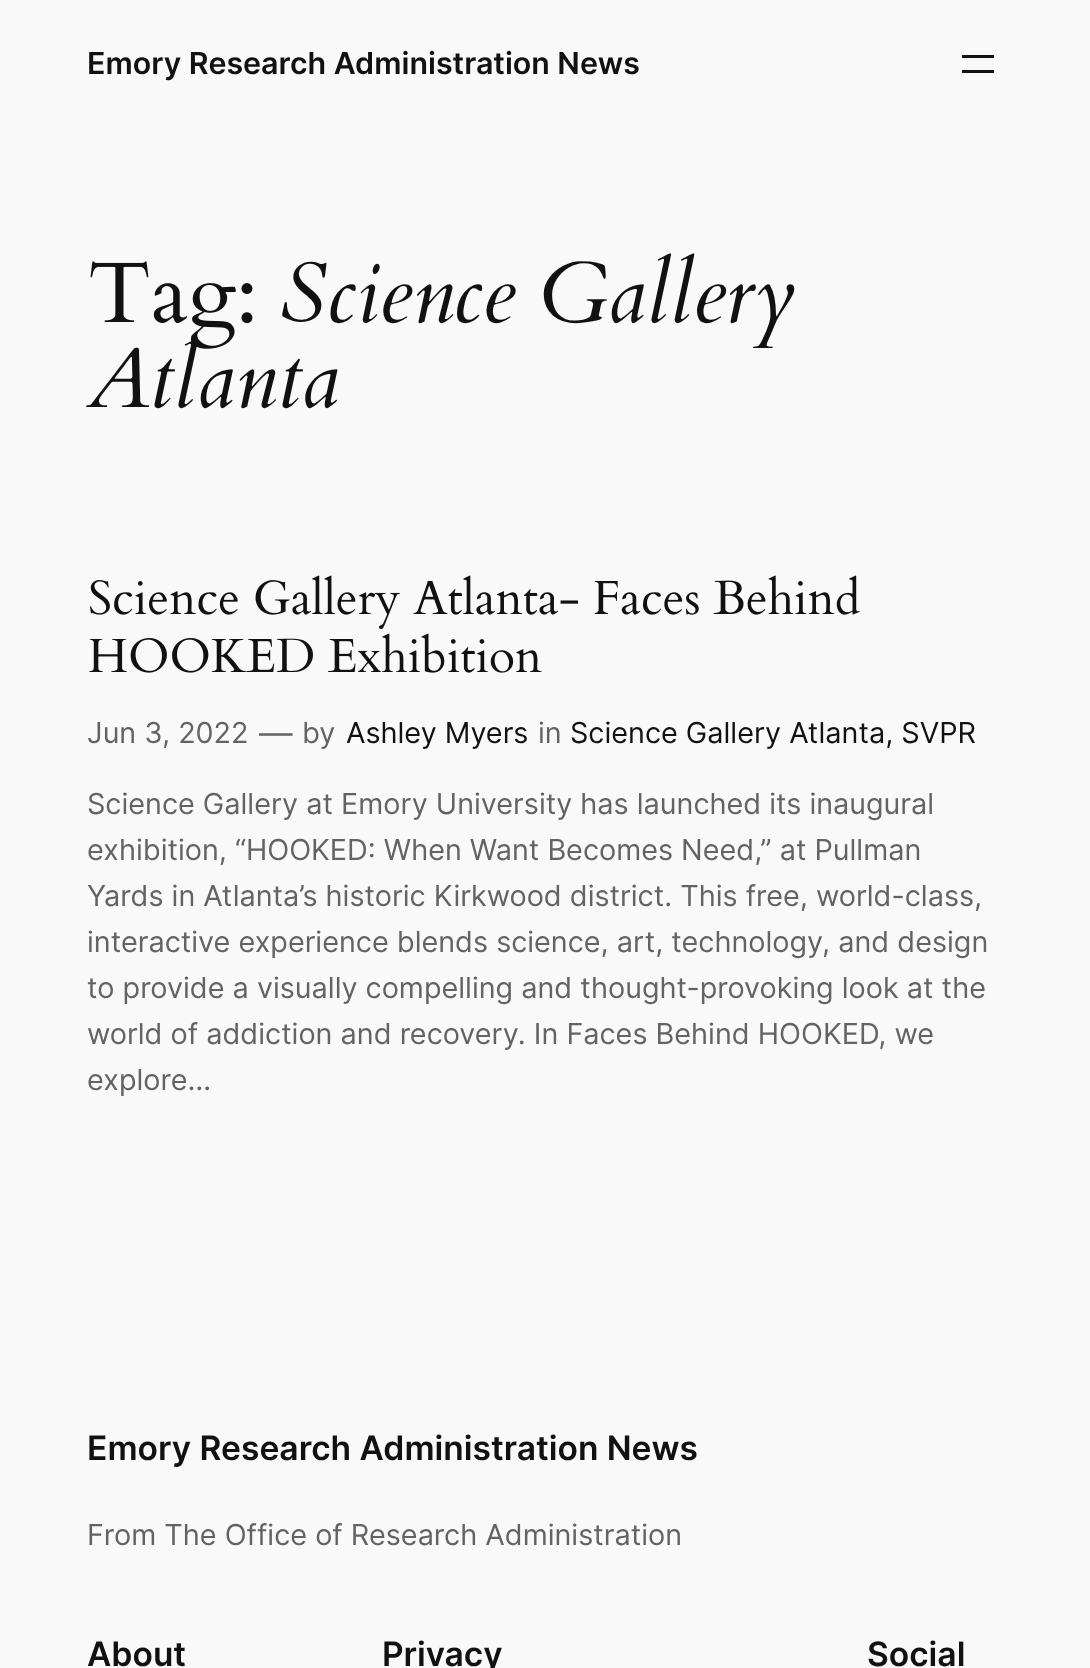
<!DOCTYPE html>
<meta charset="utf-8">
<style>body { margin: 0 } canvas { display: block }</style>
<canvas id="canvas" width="1090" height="1668"></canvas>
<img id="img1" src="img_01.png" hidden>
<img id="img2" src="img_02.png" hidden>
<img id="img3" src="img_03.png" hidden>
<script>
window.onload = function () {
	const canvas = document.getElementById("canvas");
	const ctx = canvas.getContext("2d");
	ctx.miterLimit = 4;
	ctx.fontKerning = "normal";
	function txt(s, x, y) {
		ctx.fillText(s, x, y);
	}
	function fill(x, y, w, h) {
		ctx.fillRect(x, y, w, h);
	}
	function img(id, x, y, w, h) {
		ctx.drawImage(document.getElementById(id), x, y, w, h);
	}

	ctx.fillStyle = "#F9F9F9";
	fill(0, 0, 1090, 1668);
	ctx.fillStyle = "#111111";
	fill(962, 55, 32, 3);
	fill(962, 70, 32, 3);
	img("img1", 90, 261, 163, 88);
	img("img2", 90, 575, 770, 54);
	img("img3", 89, 633, 453, 40);
	ctx.font = "600 30.4px Inter";
	txt("Emory Research Administration News", 87, 74);
	ctx.font = "italic 85.75px Cardo";
	txt("Science Gallery", 280, 322);
	txt("Atlanta", 87, 407);
	ctx.font = "28.8px Inter";
	ctx.fillStyle = "#636363";
	txt("Jun 3, 2022", 87, 743);
	ctx.font = "33.6px Inter";
	txt("—", 259, 745);
	ctx.font = "28.8px Inter";
	txt("by", 302, 743);
	ctx.fillStyle = "#111111";
	txt("Ashley Myers", 346, 743);
	ctx.fillStyle = "#636363";
	txt("in", 538, 743);
	ctx.fillStyle = "#111111";
	txt("Science Gallery Atlanta, SVPR", 570, 743);
	ctx.fillStyle = "#636363";
	txt("Science Gallery at Emory University has launched its inaugural", 87, 814);
	txt("exhibition, “HOOKED: When Want Becomes Need,” at Pullman", 87, 860);
	txt("Yards in Atlanta’s historic Kirkwood district. This free, world-class,", 87, 906);
	txt("interactive experience blends science, art, technology, and design", 87, 952);
	txt("to provide a visually compelling and thought-provoking look at the", 87, 998);
	txt("world of addiction and recovery. In Faces Behind HOOKED, we", 87, 1044);
	txt("explore…", 87, 1090);
	ctx.font = "600 33.6px Inter";
	ctx.fillStyle = "#111111";
	txt("Emory Research Administration News", 87, 1460);
	ctx.font = "28.8px Inter";
	ctx.fillStyle = "#636363";
	txt("From The Office of Research Administration", 87, 1545);
	ctx.font = "600 33.6px Inter";
	ctx.fillStyle = "#111111";
	txt("About", 87, 1666);
	txt("Privacy", 382, 1666);
	txt("Social", 867, 1666);
};
</script>
